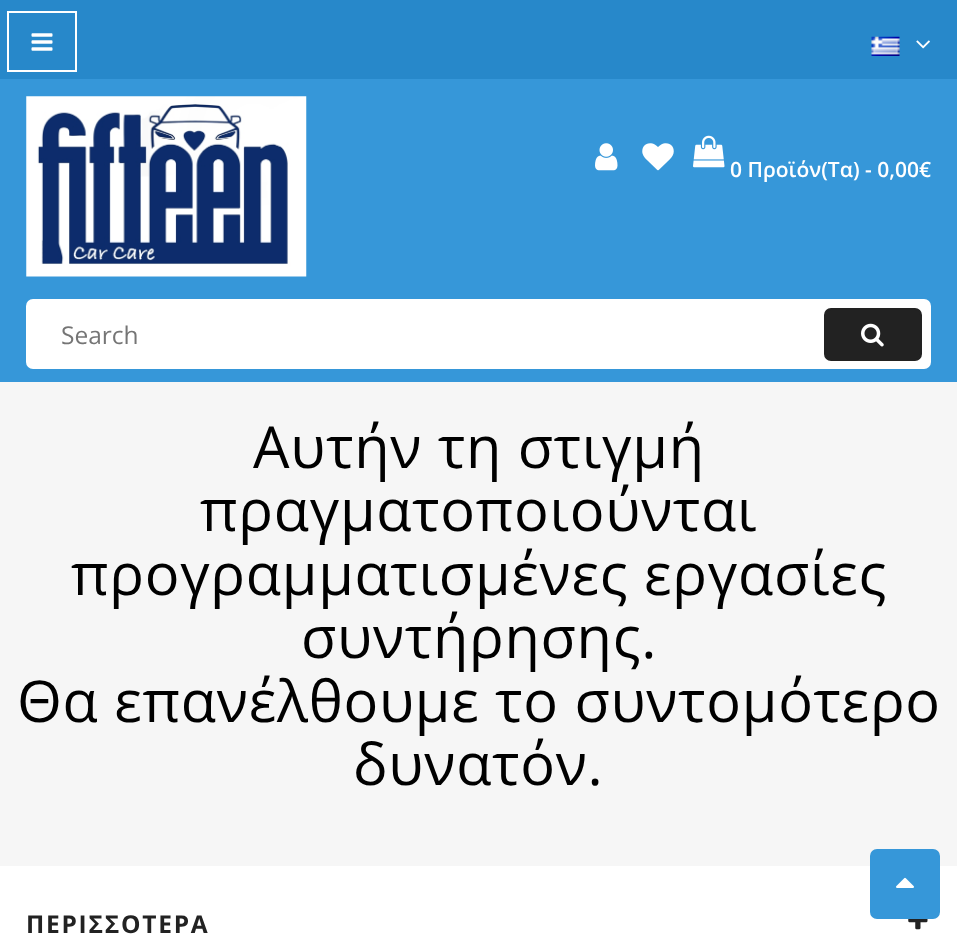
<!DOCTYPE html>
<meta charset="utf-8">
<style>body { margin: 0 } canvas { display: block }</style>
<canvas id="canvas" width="957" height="936"></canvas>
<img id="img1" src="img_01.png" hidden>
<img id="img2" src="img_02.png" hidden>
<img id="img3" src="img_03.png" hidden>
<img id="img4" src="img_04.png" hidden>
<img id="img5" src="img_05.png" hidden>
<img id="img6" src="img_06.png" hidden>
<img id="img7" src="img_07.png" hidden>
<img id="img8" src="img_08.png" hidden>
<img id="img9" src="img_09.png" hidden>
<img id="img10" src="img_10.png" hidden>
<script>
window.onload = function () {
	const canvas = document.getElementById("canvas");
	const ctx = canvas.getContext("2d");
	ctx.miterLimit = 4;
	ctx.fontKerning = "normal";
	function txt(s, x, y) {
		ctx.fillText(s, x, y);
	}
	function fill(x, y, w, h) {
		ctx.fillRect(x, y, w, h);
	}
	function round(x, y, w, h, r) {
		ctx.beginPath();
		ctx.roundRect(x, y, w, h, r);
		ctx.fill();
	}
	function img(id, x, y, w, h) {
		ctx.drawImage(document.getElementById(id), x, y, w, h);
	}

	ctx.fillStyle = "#F6F6F6";
	fill(0, 0, 957, 936);
	ctx.fillStyle = "#2788CA";
	fill(0, 0, 957, 79);
	img("img1", 871, 36, 29, 20);
	img("img2", 916, 40, 14, 9);
	ctx.strokeStyle = "#FFFFFF";
	ctx.lineWidth = 2;
	ctx.strokeRect(8, 12, 68, 59);
	img("img3", 31, 33, 22, 18);
	ctx.fillStyle = "#3697D9";
	fill(0, 79, 957, 303);
	img("img4", 26, 96, 281, 181);
	img("img5", 595, 143, 23, 28);
	img("img6", 642, 143, 32, 28);
	img("img7", 693, 135, 32, 33);
	ctx.fillStyle = "#FFFFFF";
	round(26, 299, 905, 70, 7);
	ctx.fillStyle = "#222222";
	ctx.beginPath();
	ctx.roundRect(825, 309, 96, 51, 6);
	ctx.fill();
	ctx.strokeStyle = "#222222";
	ctx.stroke();
	img("img8", 861, 323, 23, 24);
	ctx.fillStyle = "#FFFFFF";
	fill(0, 866, 957, 70);
	ctx.fillStyle = "#3697D9";
	ctx.beginPath();
	ctx.roundRect(874.5, 853.5, 61, 61, 2.5);
	ctx.fill();
	ctx.strokeStyle = "#3697D9";
	ctx.lineWidth = 9;
	ctx.stroke();
	img("img9", 896, 877, 18, 11);
	img("img10", 908, 919, 20, 11);
	ctx.font = "600 21px Open Sans";
	ctx.fillStyle = "#FFFFFF";
	txt("0 Προϊόν(Τα) - 0,00€", 730, 177);
	ctx.font = "24.5px Open Sans";
	ctx.fillStyle = "#757575";
	txt("Search", 61, 344);
	ctx.letterSpacing = "0.7px";
	ctx.font = "57.75px Open Sans";
	ctx.fillStyle = "#000000";
	txt("Αυτήν τη στιγμή", 253, 468);
	txt("πραγματοποιούνται", 200, 531);
	txt("προγραμματισμένες εργασίες", 71, 595);
	txt("συντήρησης.", 301, 658);
	txt("Θα επανέλθουμε το συντομότερο", 17, 722);
	txt("δυνατόν.", 353, 785);
	ctx.letterSpacing = "1.75px";
	ctx.font = "bold 24.5px Open Sans";
	ctx.fillStyle = "#222222";
	txt("ΠΕΡΙΣΣΟΤΕΡΑ", 26, 933);
};
</script>
